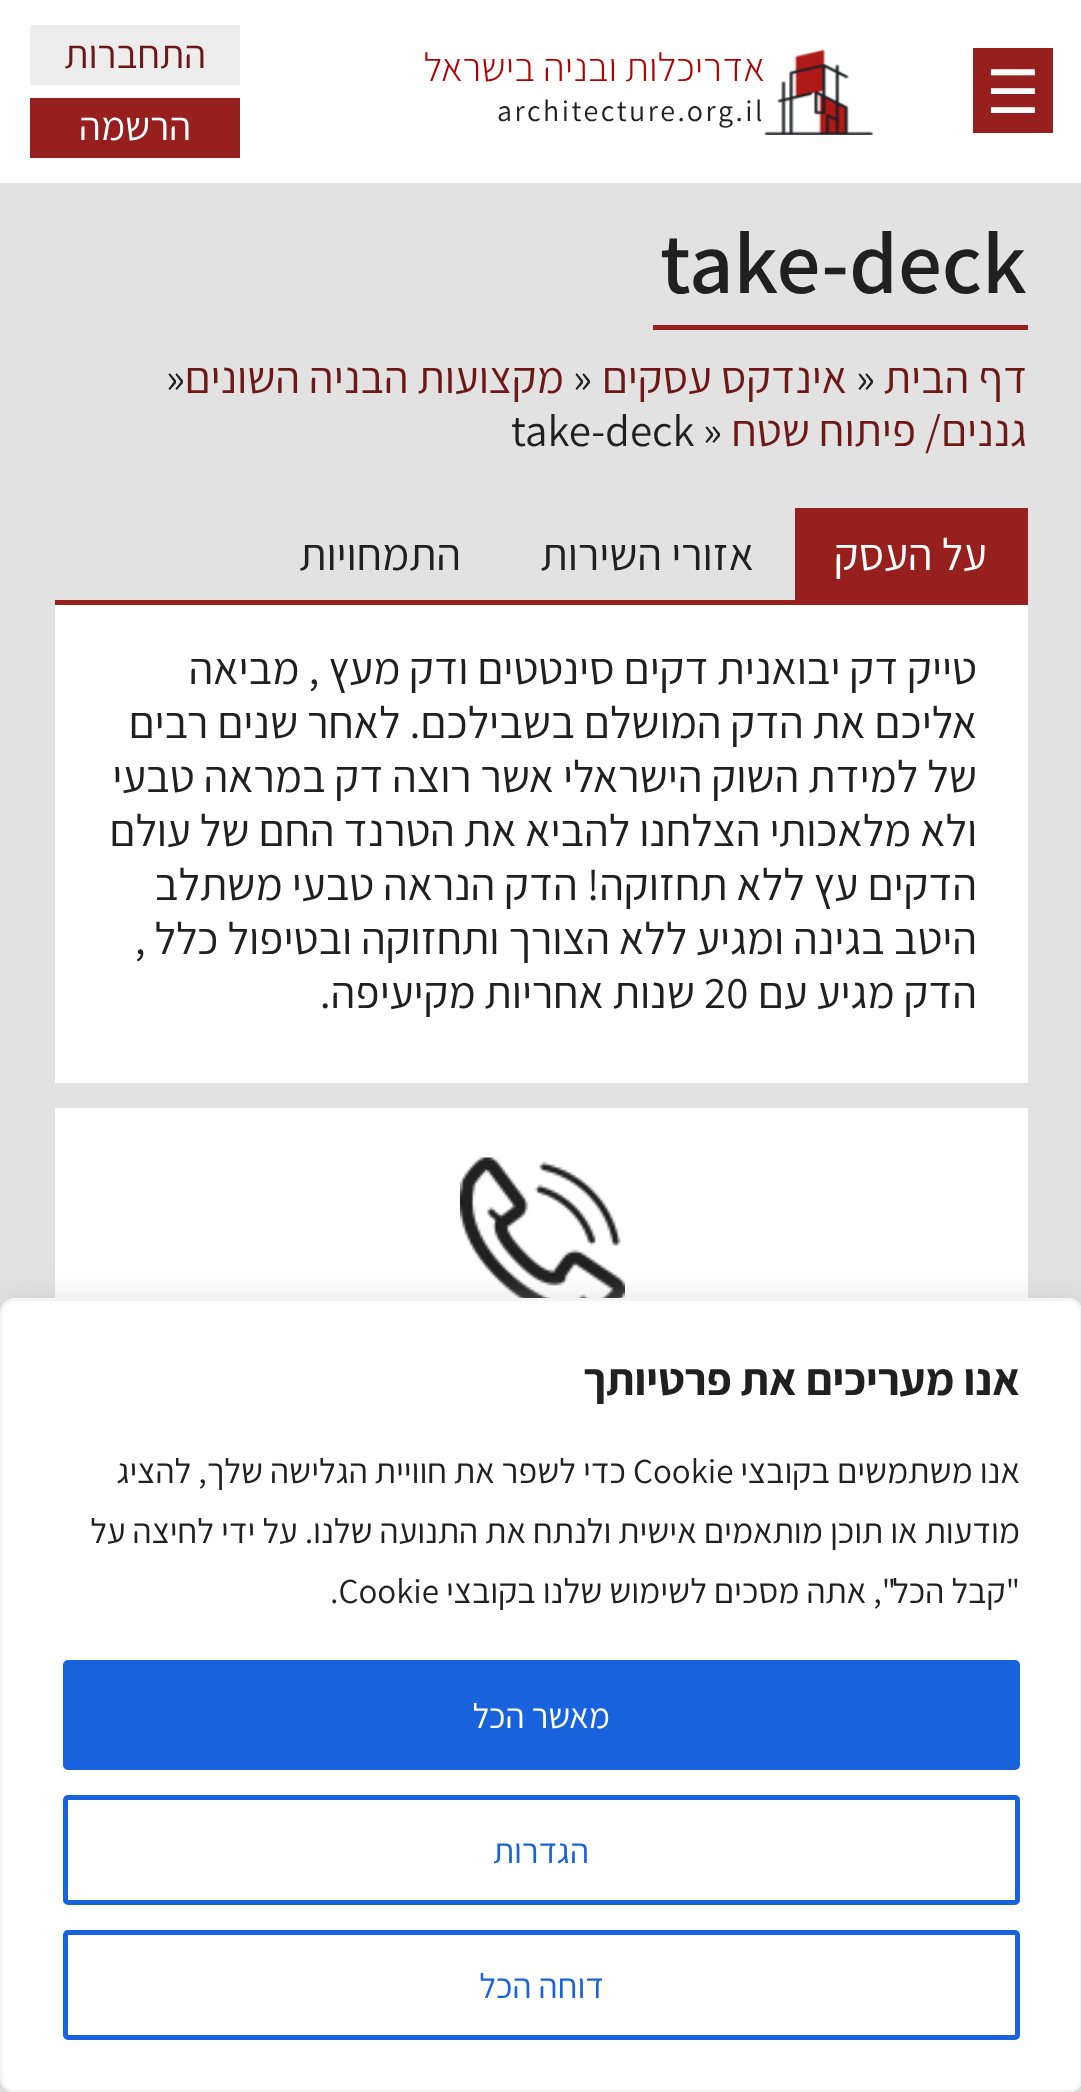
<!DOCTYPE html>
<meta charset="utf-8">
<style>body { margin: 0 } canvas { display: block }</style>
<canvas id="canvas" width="1081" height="2092"></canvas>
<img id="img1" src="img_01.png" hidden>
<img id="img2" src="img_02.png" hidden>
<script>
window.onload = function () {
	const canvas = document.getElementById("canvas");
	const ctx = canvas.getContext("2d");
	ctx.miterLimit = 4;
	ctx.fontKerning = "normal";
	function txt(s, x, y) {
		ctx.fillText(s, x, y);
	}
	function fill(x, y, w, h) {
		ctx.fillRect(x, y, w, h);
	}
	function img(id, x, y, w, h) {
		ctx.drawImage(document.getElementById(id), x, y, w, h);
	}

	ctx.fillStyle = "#FFFFFF";
	fill(0, 0, 1081, 2092);
	ctx.fillStyle = "#971F1D";
	fill(973, 48, 80, 85);
	img("img1", 764, 49, 109, 86);
	ctx.fillStyle = "#EDEDED";
	fill(30, 25, 210, 60);
	ctx.fillStyle = "#971F1D";
	fill(30, 98, 210, 60);
	ctx.fillStyle = "#E2E2E2";
	fill(0, 183, 1081, 1909);
	ctx.fillStyle = "#971F1D";
	fill(653, 325, 375, 5);
	fill(55, 600, 973, 5);
	fill(795, 508, 233, 92);
	ctx.fillStyle = "#FFFFFF";
	fill(55, 605, 973, 478);
	fill(55, 1108, 973, 190);
	img("img2", 460, 1157, 165, 141);
	ctx.fillStyle = "rgba(172, 171, 171, 0.3)";
	ctx.filter = "blur(12.5px)";
	ctx.beginPath();
	ctx.roundRect(0, 1295, 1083, 795, 15);
	ctx.fill();
	ctx.filter = "none";
	ctx.fillStyle = "#FFFFFF";
	ctx.beginPath();
	ctx.roundRect(1.5, 1299.5, 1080, 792, 13.5);
	ctx.fill();
	ctx.strokeStyle = "#F4F4F4";
	ctx.lineWidth = 3;
	ctx.stroke();
	ctx.fillStyle = "#1863DC";
	ctx.beginPath();
	ctx.roundRect(65.5, 1662.5, 952, 105, 2.5);
	ctx.fill();
	ctx.strokeStyle = "#1863DC";
	ctx.lineWidth = 5;
	ctx.stroke();
	ctx.beginPath();
	ctx.roundRect(65.5, 1797.5, 952, 105, 2.5);
	ctx.stroke();
	ctx.beginPath();
	ctx.roundRect(65.5, 1932.5, 952, 105, 2.5);
	ctx.stroke();
	ctx.font = "60px DejaVu Sans";
	ctx.fillStyle = "#FFFFFF";
	txt("☰", 986, 113);
	ctx.direction = "rtl";
	ctx.font = "300 40px Assistant";
	ctx.fillStyle = "#B10000";
	txt("אדריכלות ובניה בישראל", 765, 81);
	ctx.letterSpacing = "2.5px";
	ctx.direction = "ltr";
	ctx.font = "30px Assistant";
	ctx.fillStyle = "#202021";
	txt("architecture.org.il", 497, 121);
	ctx.letterSpacing = "0px";
	ctx.direction = "rtl";
	ctx.font = "40px Assistant";
	ctx.fillStyle = "#6D1816";
	txt("התחברות", 206, 68);
	ctx.fillStyle = "#FFFFFF";
	txt("הרשמה", 191, 140);
	ctx.direction = "ltr";
	ctx.font = "600 87.5px Assistant";
	ctx.fillStyle = "#202021";
	txt("take-deck", 660, 293);
	ctx.direction = "rtl";
	ctx.font = "45px Assistant";
	ctx.fillStyle = "#6D1816";
	txt("דף הבית", 1027, 393);
	ctx.direction = "ltr";
	ctx.fillStyle = "#202021";
	txt("»", 856, 393);
	ctx.direction = "rtl";
	ctx.fillStyle = "#6D1816";
	txt("אינדקס עסקים", 847, 393);
	ctx.direction = "ltr";
	ctx.fillStyle = "#202021";
	txt("»", 573, 393);
	ctx.direction = "rtl";
	ctx.fillStyle = "#6D1816";
	txt("מקצועות הבניה השונים", 564, 393);
	ctx.direction = "ltr";
	ctx.fillStyle = "#202021";
	txt("»", 166, 393);
	ctx.direction = "rtl";
	ctx.fillStyle = "#6D1816";
	txt("גננים/ פיתוח שטח", 1027, 446);
	ctx.direction = "ltr";
	ctx.fillStyle = "#202021";
	txt("»", 703, 446);
	txt("take-deck", 511, 446);
	ctx.direction = "rtl";
	ctx.fillStyle = "#FFFFFF";
	txt("על העסק", 987, 570);
	ctx.fillStyle = "#202021";
	txt("אזורי השירות", 754, 570);
	txt("התמחויות", 461, 570);
	txt("טייק דק יבואנית דקים סינטטים ודק מעץ , מביאה", 977, 684);
	txt("אליכם את הדק המושלם בשבילכם. לאחר שנים רבים", 977, 738);
	txt("של למידת השוק הישראלי אשר רוצה דק במראה טבעי", 977, 792);
	txt("ולא מלאכותי הצלחנו להביא את הטרנד החם של עולם", 977, 846);
	txt("הדקים עץ ללא תחזוקה! הדק הנראה טבעי משתלב", 977, 900);
	txt("היטב בגינה ומגיע ללא הצורך ותחזוקה ובטיפול כלל ,", 977, 954);
	txt("הדק מגיע עם", 977, 1008);
	ctx.direction = "ltr";
	txt("20", 704, 1008);
	ctx.direction = "rtl";
	txt("שנות אחריות מקיעיפה.", 695, 1008);
	ctx.font = "bold 45px Assistant";
	txt("אנו מעריכים את פרטיותך", 1020, 1395);
	ctx.font = "35px Assistant";
	txt("אנו משתמשים בקובצי", 1020, 1483);
	ctx.direction = "ltr";
	txt("Cookie", 633, 1483);
	ctx.direction = "rtl";
	txt("כדי לשפר את חוויית הגלישה שלך, להציג", 626, 1483);
	txt("מודעות או תוכן מותאמים אישית ולנתח את התנועה שלנו. על ידי לחיצה על", 1020, 1543);
	txt("\"קבל הכל\", אתה מסכים לשימוש שלנו בקובצי", 1020, 1603);
	ctx.direction = "ltr";
	txt(".Cookie", 330, 1603);
	ctx.direction = "rtl";
	ctx.fillStyle = "#FFFFFF";
	txt("מאשר הכל", 610, 1728);
	ctx.fillStyle = "#1863DC";
	txt("הגדרות", 589, 1863);
	txt("דוחה הכל", 604, 1998);
};
</script>
